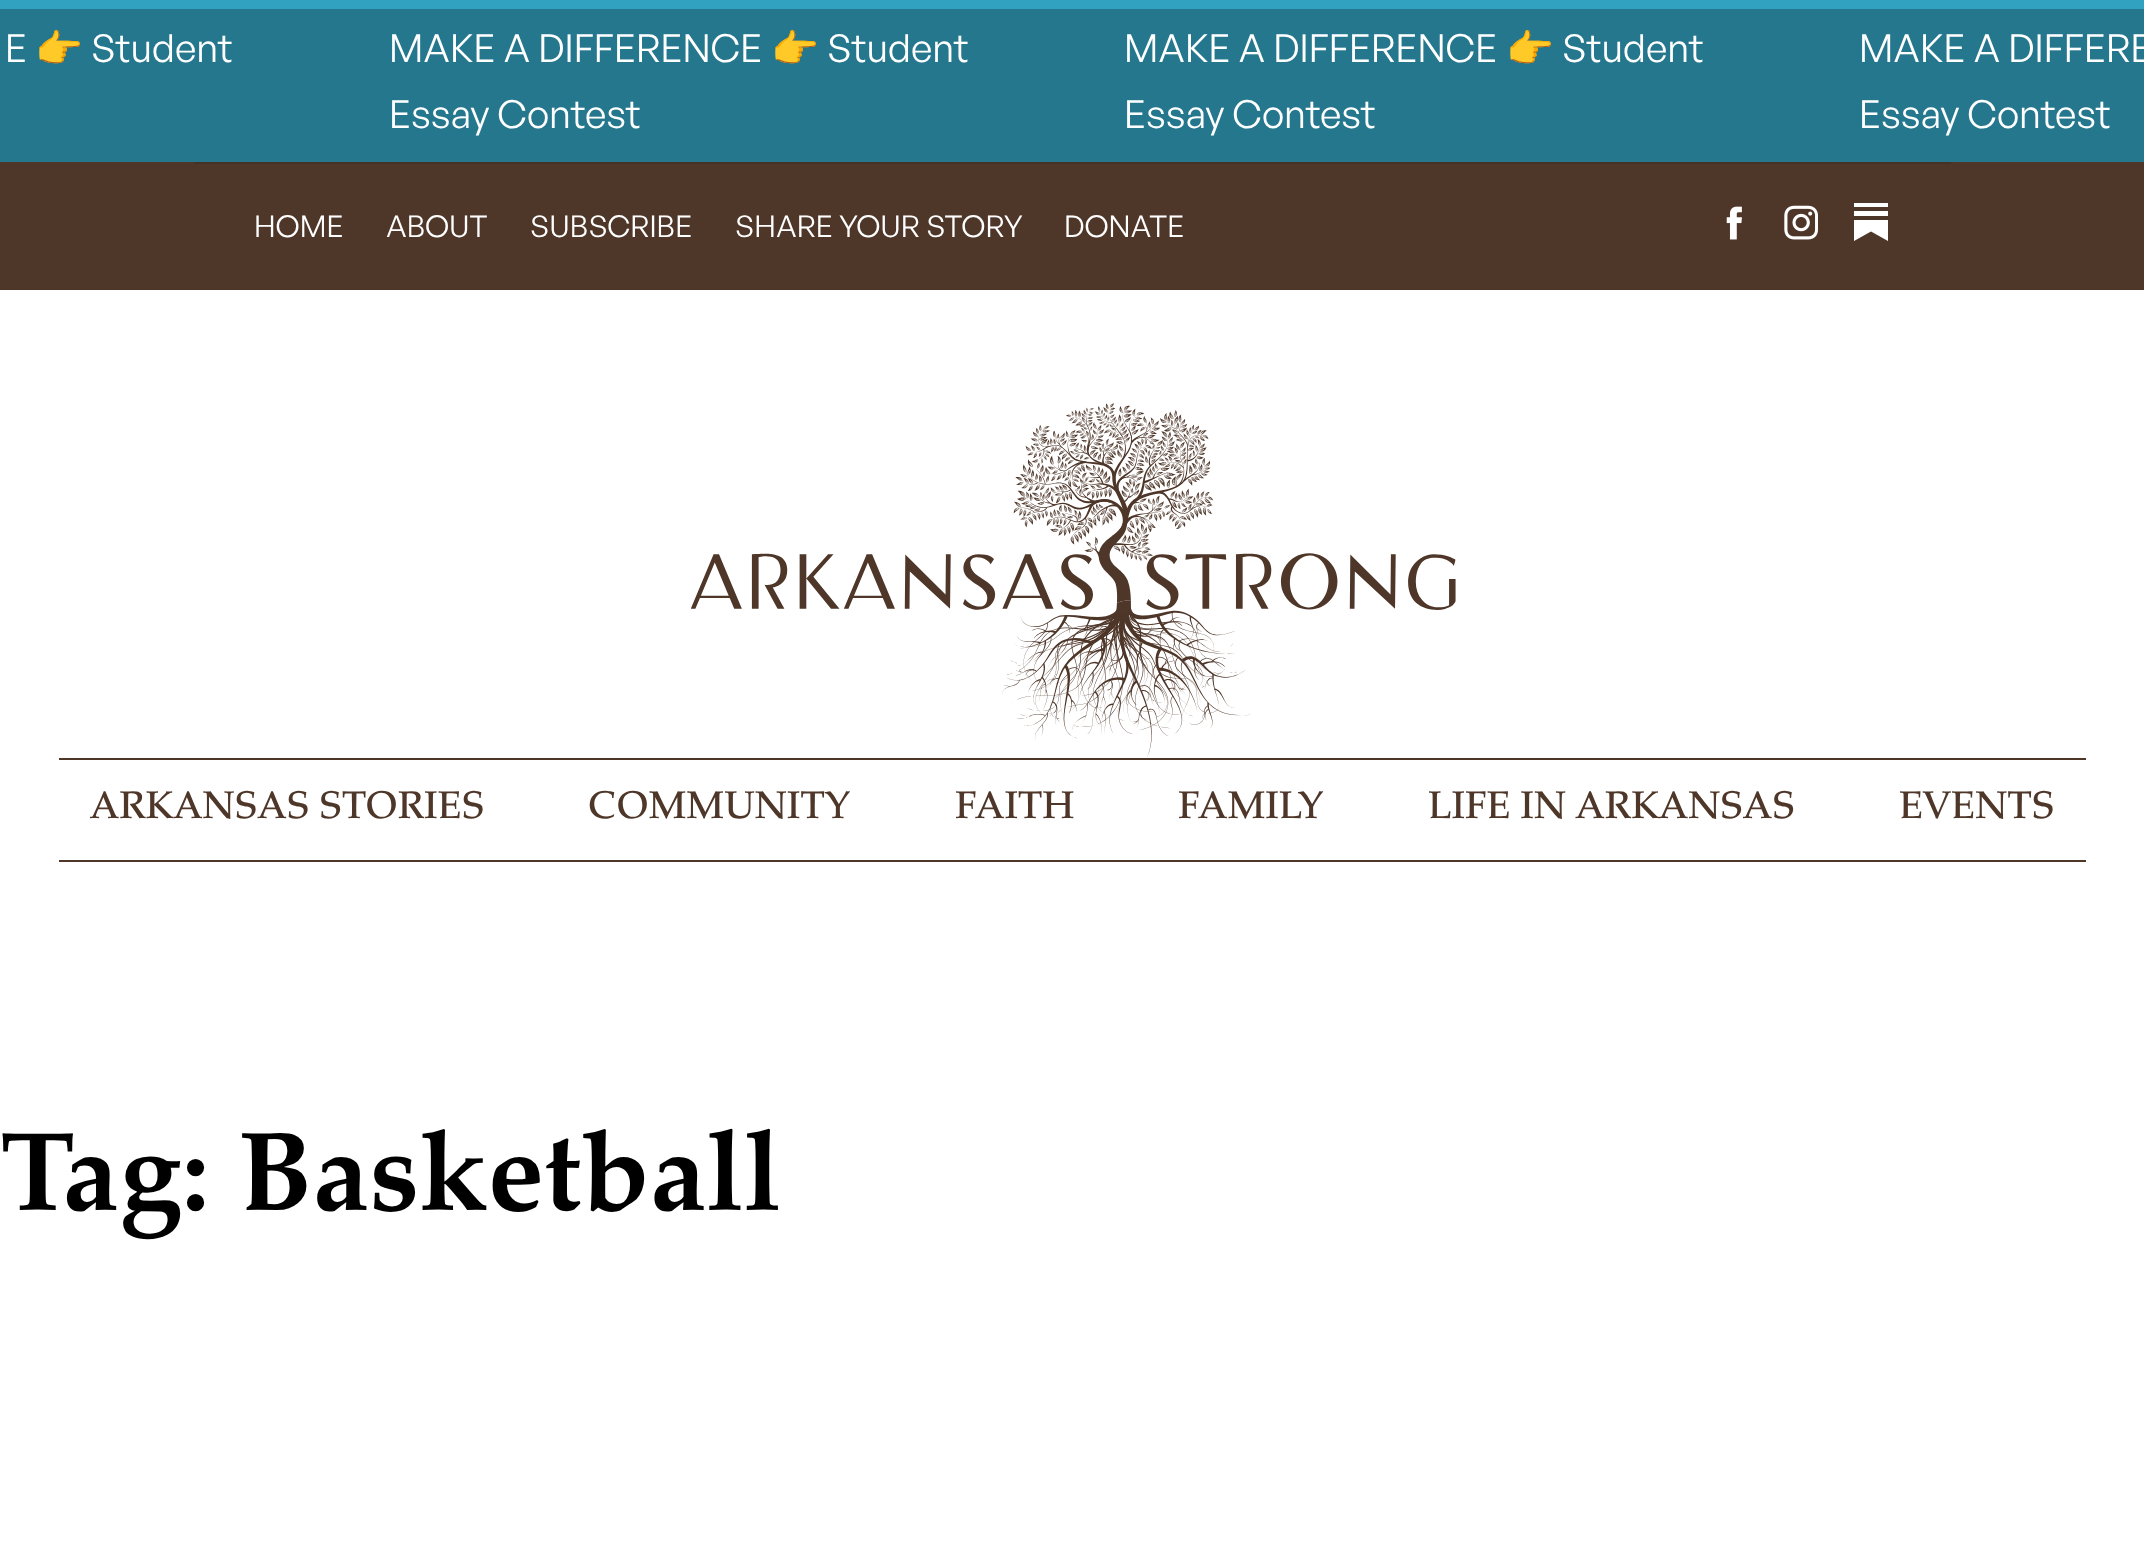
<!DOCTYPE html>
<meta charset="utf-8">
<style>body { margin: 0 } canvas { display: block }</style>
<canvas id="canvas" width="2144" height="1565"></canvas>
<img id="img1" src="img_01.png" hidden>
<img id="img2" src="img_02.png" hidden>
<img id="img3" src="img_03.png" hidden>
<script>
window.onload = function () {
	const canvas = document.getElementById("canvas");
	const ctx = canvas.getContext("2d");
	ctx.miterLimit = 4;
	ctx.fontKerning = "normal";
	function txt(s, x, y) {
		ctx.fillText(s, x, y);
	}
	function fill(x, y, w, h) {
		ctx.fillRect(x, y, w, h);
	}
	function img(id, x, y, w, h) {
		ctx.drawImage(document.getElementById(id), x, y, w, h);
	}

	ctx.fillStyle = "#FFFFFF";
	fill(0, 0, 2144, 1565);
	ctx.fillStyle = "#32A2C1";
	fill(0, 0, 2144, 9);
	ctx.fillStyle = "#25778E";
	fill(0, 9, 2144, 153);
	ctx.fillStyle = "#4E3629";
	fill(0, 162, 2144, 128);
	ctx.fillStyle = "#463125";
	fill(194, 162, 1757, 2);
	img("img1", 1726, 206, 16, 34);
	img("img2", 1784, 205, 34, 35);
	ctx.save();
	ctx.beginPath();
	ctx.rect(1852, 203, 38, 38);
	ctx.clip();
	ctx.fillStyle = "#FFFFFF";
	ctx.beginPath();
	ctx.moveTo(1854, 202.5);
	ctx.lineTo(1888, 202.5);
	ctx.lineTo(1888, 207);
	ctx.lineTo(1854, 207);
	ctx.closePath();
	ctx.moveTo(1854, 220);
	ctx.lineTo(1888, 220);
	ctx.lineTo(1888, 241);
	ctx.lineTo(1871, 231.5);
	ctx.lineTo(1854, 241);
	ctx.closePath();
	ctx.moveTo(1854, 211);
	ctx.lineTo(1888, 211);
	ctx.lineTo(1888, 216);
	ctx.lineTo(1854, 216);
	ctx.closePath();
	ctx.fill("evenodd");
	ctx.restore();
	img("img3", 691, 403, 765, 355);
	ctx.fillStyle = "#4E3629";
	fill(59, 758, 2027, 2);
	fill(59, 860, 2027, 2);
	ctx.font = "38.5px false";
	ctx.fillStyle = "#FFFFFF";
	txt("E", 5, 62);
	ctx.font = "38.5px Noto Color Emoji";
	txt("👉", 35, 62);
	ctx.font = "38.5px false";
	txt("Student", 91, 62);
	txt("MAKE A DIFFERENCE", 389, 62);
	ctx.font = "38.5px Noto Color Emoji";
	txt("👉", 771, 62);
	ctx.font = "38.5px false";
	txt("Student", 827, 62);
	txt("Essay Contest", 389, 128);
	txt("MAKE A DIFFERENCE", 1124, 62);
	ctx.font = "38.5px Noto Color Emoji";
	txt("👉", 1506, 62);
	ctx.font = "38.5px false";
	txt("Student", 1562, 62);
	txt("Essay Contest", 1124, 128);
	txt("MAKE A DIFFERE", 1859, 62);
	txt("Essay Contest", 1859, 128);
	ctx.font = "30px false";
	txt("HOME", 254, 237);
	txt("ABOUT", 386, 237);
	txt("SUBSCRIBE", 530, 237);
	txt("SHARE YOUR STORY", 735, 237);
	txt("DONATE", 1064, 237);
	ctx.font = "500 38.5px Palatino";
	ctx.fillStyle = "#4E3629";
	txt("ARKANSAS STORIES", 90, 818);
	txt("COMMUNITY", 588, 818);
	txt("FAITH", 955, 818);
	txt("FAMILY", 1178, 818);
	txt("LIFE IN ARKANSAS", 1428, 818);
	txt("EVENTS", 1899, 818);
	ctx.font = "bold 112.5px Palatino";
	ctx.fillStyle = "#000000";
	txt("Tag: Basketball", 0, 1210);
};
</script>
